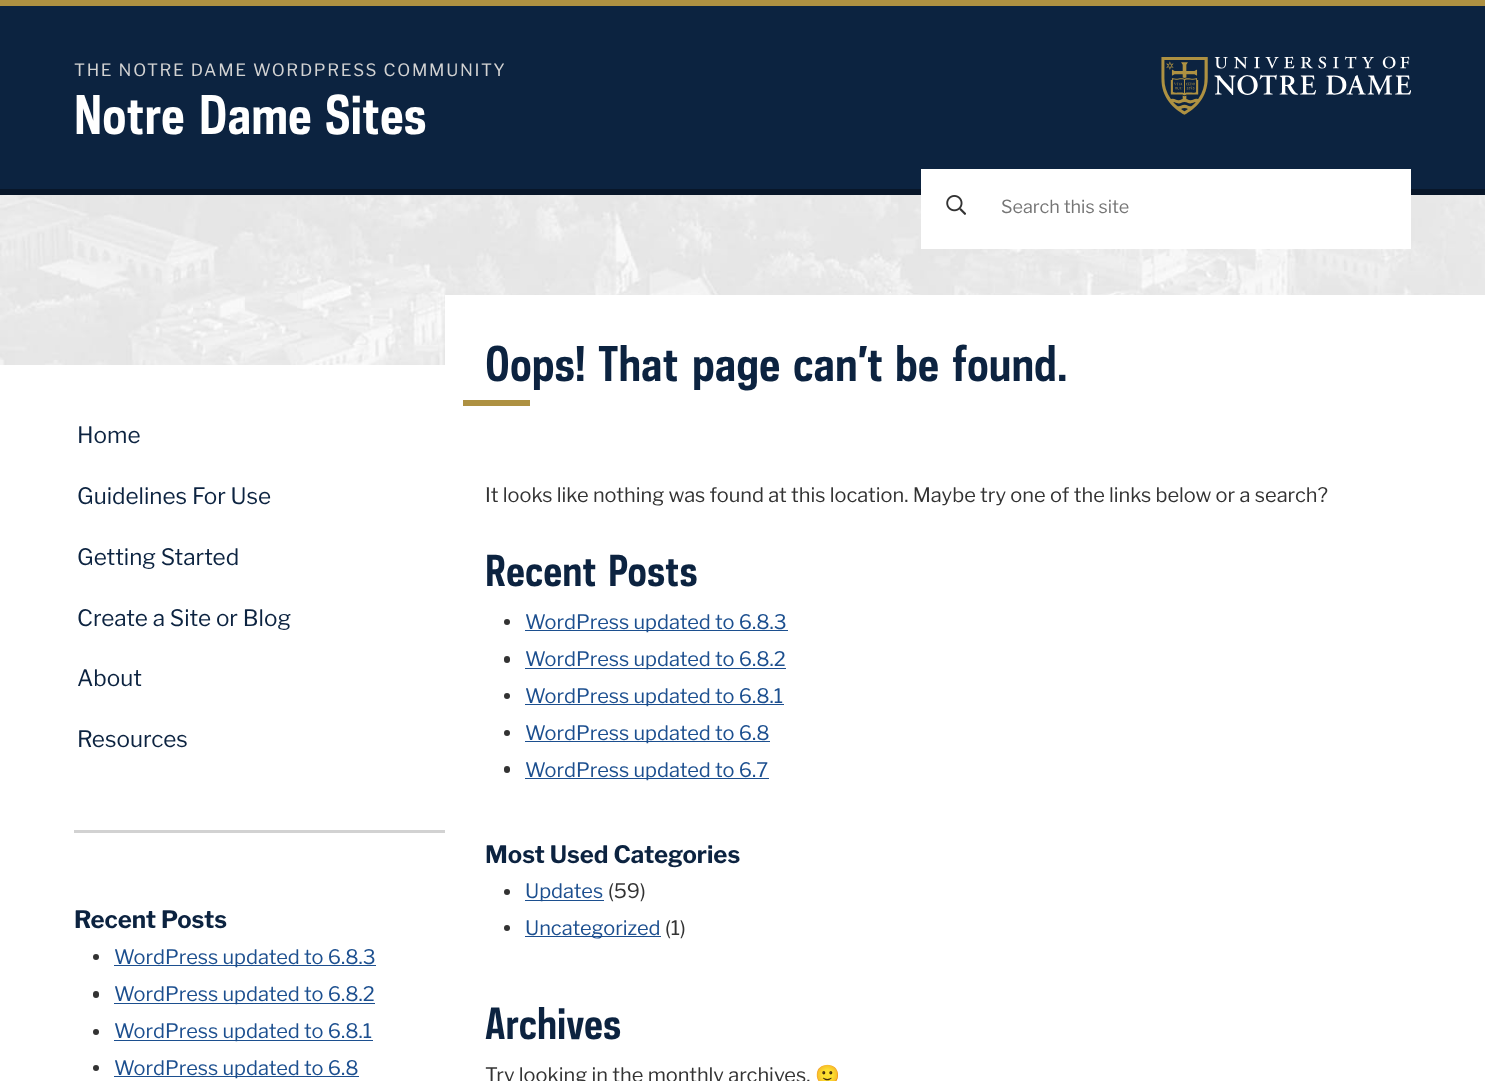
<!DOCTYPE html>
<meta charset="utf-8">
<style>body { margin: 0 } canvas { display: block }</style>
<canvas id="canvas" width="1485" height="1081"></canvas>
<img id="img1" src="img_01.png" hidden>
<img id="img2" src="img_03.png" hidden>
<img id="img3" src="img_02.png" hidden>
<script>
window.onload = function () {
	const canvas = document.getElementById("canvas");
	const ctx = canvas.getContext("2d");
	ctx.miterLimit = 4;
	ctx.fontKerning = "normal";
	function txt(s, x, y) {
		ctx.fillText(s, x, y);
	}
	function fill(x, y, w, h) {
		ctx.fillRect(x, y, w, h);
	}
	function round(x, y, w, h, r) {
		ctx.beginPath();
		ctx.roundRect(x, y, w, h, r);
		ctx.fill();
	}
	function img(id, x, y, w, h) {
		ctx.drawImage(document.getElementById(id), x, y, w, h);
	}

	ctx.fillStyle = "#FFFFFF";
	fill(0, 0, 1485, 1081);
	ctx.fillStyle = "#0C2340";
	fill(0, 6, 1485, 183);
	ctx.fillStyle = "#AE9142";
	fill(0, 0, 1485, 6);
	ctx.fillStyle = "#081629";
	fill(0, 189, 1485, 6);
	img("img1", 1161, 56, 250, 59);
	img("img2", 0, 195, 1485, 170);
	ctx.fillStyle = "#FFFFFF";
	fill(921, 169, 490, 80);
	img("img3", 946, 195, 20, 20);
	ctx.fillStyle = "#D2D2D2";
	fill(74, 830, 371, 3);
	ctx.fillStyle = "#333333";
	ctx.beginPath();
	ctx.arc(96, 957, 3, 0, Math.PI * 2);
	ctx.fill();
	ctx.fillStyle = "#1C4F8F";
	fill(114, 965, 262, 1);
	ctx.fillStyle = "#333333";
	round(93, 991, 6, 7, 3);
	ctx.fillStyle = "#1C4F8F";
	fill(114, 1003, 261, 1);
	ctx.fillStyle = "#333333";
	ctx.beginPath();
	ctx.arc(96, 1032, 3, 0, Math.PI * 2);
	ctx.fill();
	ctx.fillStyle = "#1C4F8F";
	fill(114, 1040, 259, 1);
	ctx.fillStyle = "#333333";
	ctx.beginPath();
	ctx.arc(96, 1068, 3, 0, Math.PI * 2);
	ctx.fill();
	ctx.fillStyle = "#1C4F8F";
	fill(114, 1076, 245, 1);
	ctx.fillStyle = "#FFFFFF";
	fill(445, 295, 1040, 70);
	ctx.fillStyle = "#AE9142";
	fill(463, 400, 67, 6);
	ctx.fillStyle = "#333333";
	ctx.beginPath();
	ctx.arc(507, 622, 3, 0, Math.PI * 2);
	ctx.fill();
	ctx.fillStyle = "#1C4F8F";
	fill(525, 630, 263, 1);
	ctx.fillStyle = "#333333";
	round(504, 656, 6, 7, 3);
	ctx.fillStyle = "#1C4F8F";
	fill(525, 668, 261, 1);
	ctx.fillStyle = "#333333";
	ctx.beginPath();
	ctx.arc(507, 696, 3, 0, Math.PI * 2);
	ctx.fill();
	ctx.fillStyle = "#1C4F8F";
	fill(525, 704, 259, 1);
	ctx.fillStyle = "#333333";
	ctx.beginPath();
	ctx.arc(507, 733, 3, 0, Math.PI * 2);
	ctx.fill();
	ctx.fillStyle = "#1C4F8F";
	fill(525, 741, 245, 1);
	ctx.fillStyle = "#333333";
	round(504, 766, 6, 7, 3);
	ctx.fillStyle = "#1C4F8F";
	fill(525, 778, 244, 1);
	ctx.fillStyle = "#333333";
	ctx.beginPath();
	ctx.arc(507, 892, 3, 0, Math.PI * 2);
	ctx.fill();
	ctx.fillStyle = "#1C4F8F";
	fill(525, 900, 79, 1);
	ctx.fillStyle = "#333333";
	ctx.beginPath();
	ctx.arc(507, 928, 3, 0, Math.PI * 2);
	ctx.fill();
	ctx.fillStyle = "#1C4F8F";
	fill(525, 936, 136, 1);
	ctx.letterSpacing = "1.7px";
	ctx.font = "17px Libre Franklin";
	ctx.fillStyle = "#D2D2D2";
	txt("THE NOTRE DAME WORDPRESS COMMUNITY", 74, 76);
	ctx.letterSpacing = "0px";
	ctx.font = "bold 50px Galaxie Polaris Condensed";
	ctx.fillStyle = "#FFFFFF";
	txt("Notre", 74, 134);
	txt("Dame", 199, 134);
	txt("Sites", 325, 134);
	ctx.font = "18px Libre Franklin";
	ctx.fillStyle = "#757575";
	txt("Search this site", 1001, 213);
	ctx.font = "22.5px Libre Franklin";
	ctx.fillStyle = "#0C2340";
	txt("Home", 77, 443);
	txt("Guidelines For Use", 77, 504);
	txt("Getting Started", 77, 565);
	txt("Create a Site or Blog", 77, 626);
	txt("About", 77, 686);
	txt("Resources", 77, 747);
	ctx.font = "bold 24px Libre Franklin";
	txt("Recent Posts", 74, 928);
	ctx.font = "20px Libre Franklin";
	ctx.fillStyle = "#1C4F8F";
	txt("WordPress updated to 6.8.3", 114, 964);
	txt("WordPress updated to 6.8.2", 114, 1001);
	txt("WordPress updated to 6.8.1", 114, 1038);
	txt("WordPress updated to 6.8", 114, 1075);
	ctx.font = "bold 45px Galaxie Polaris Condensed";
	ctx.fillStyle = "#0C2340";
	txt("Oops!", 485, 381);
	txt("That", 598, 381);
	txt("page", 692, 381);
	txt("can’t", 793, 381);
	txt("be", 895, 381);
	txt("found.", 952, 381);
	ctx.font = "20px Libre Franklin";
	ctx.fillStyle = "#333333";
	txt("It looks like nothing was found at this location. Maybe try one of the links below or a search?", 485, 502);
	ctx.font = "bold 40px Galaxie Polaris Condensed";
	ctx.fillStyle = "#0C2340";
	txt("Recent", 485, 586);
	txt("Posts", 608, 586);
	ctx.font = "20px Libre Franklin";
	ctx.fillStyle = "#1C4F8F";
	txt("WordPress updated to 6.8.3", 525, 629);
	txt("WordPress updated to 6.8.2", 525, 666);
	txt("WordPress updated to 6.8.1", 525, 703);
	txt("WordPress updated to 6.8", 525, 740);
	txt("WordPress updated to 6.7", 525, 777);
	ctx.font = "bold 24px Libre Franklin";
	ctx.fillStyle = "#0C2340";
	txt("Most Used Categories", 485, 863);
	ctx.font = "20px Libre Franklin";
	ctx.fillStyle = "#1C4F8F";
	txt("Updates", 525, 898);
	ctx.fillStyle = "#333333";
	txt("(59)", 608, 898);
	ctx.fillStyle = "#1C4F8F";
	txt("Uncategorized", 525, 935);
	ctx.fillStyle = "#333333";
	txt("(1)", 665, 935);
	ctx.font = "bold 40px Galaxie Polaris Condensed";
	ctx.fillStyle = "#0C2340";
	txt("Archives", 485, 1039);
	ctx.font = "20px Libre Franklin";
	ctx.fillStyle = "#333333";
	txt("Try looking in the monthly archives.", 485, 1082);
	ctx.font = "20px Noto Color Emoji";
	txt("🙂", 815, 1082);
};
</script>
